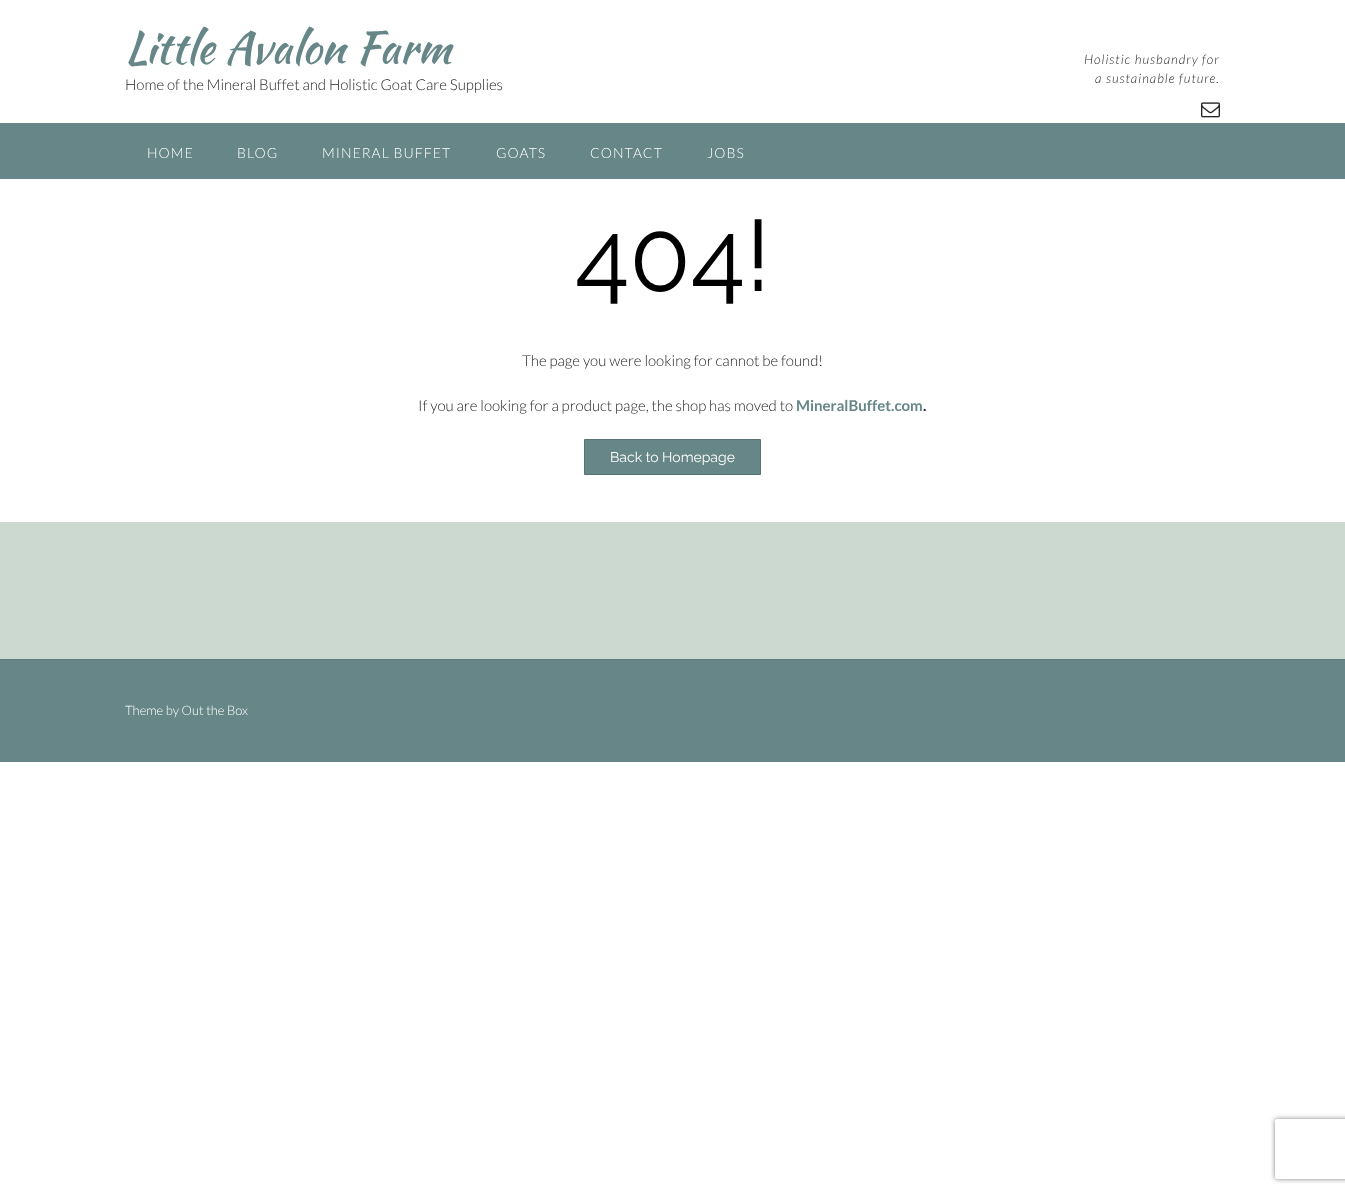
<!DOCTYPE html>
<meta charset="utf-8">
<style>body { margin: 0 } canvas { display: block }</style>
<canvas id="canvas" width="1345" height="1193"></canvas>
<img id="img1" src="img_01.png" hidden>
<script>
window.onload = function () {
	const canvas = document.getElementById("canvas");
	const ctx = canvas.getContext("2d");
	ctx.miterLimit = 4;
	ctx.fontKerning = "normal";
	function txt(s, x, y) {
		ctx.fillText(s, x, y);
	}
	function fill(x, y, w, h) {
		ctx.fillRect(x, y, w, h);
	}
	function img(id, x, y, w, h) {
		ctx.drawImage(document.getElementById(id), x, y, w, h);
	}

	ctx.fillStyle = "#FFFFFF";
	fill(0, 0, 1345, 1193);
	img("img1", 1201, 102, 19, 16);
	ctx.fillStyle = "#668687";
	fill(0, 123, 1345, 56);
	ctx.beginPath();
	ctx.rect(584.5, 439.5, 176, 35);
	ctx.fill();
	ctx.strokeStyle = "#587374";
	ctx.stroke();
	ctx.fillStyle = "#CBD9D1";
	fill(0, 522, 1345, 137);
	ctx.fillStyle = "#668687";
	fill(0, 660, 1345, 102);
	ctx.fillStyle = "#5E7B7C";
	fill(0, 659, 1345, 1);
	ctx.save();
	ctx.beginPath();
	ctx.moveTo(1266, 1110);
	ctx.lineTo(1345, 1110);
	ctx.lineTo(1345, 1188);
	ctx.lineTo(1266, 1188);
	ctx.closePath();
	ctx.moveTo(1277, 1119);
	ctx.lineTo(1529, 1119);
	ctx.bezierCurveTo(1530, 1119, 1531, 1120, 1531, 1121);
	ctx.lineTo(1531, 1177);
	ctx.bezierCurveTo(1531, 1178, 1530, 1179, 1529, 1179);
	ctx.lineTo(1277, 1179);
	ctx.bezierCurveTo(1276, 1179, 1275, 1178, 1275, 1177);
	ctx.lineTo(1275, 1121);
	ctx.bezierCurveTo(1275, 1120, 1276, 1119, 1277, 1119);
	ctx.closePath();
	ctx.clip("evenodd");
	ctx.fillStyle = "#808080";
	ctx.filter = "blur(2.5px)";
	ctx.beginPath();
	ctx.roundRect(1275, 1119, 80, 60, 2);
	ctx.fill();
	ctx.filter = "none";
	ctx.restore();
	ctx.font = "44px Kaushan Script";
	ctx.fillStyle = "#668687";
	txt("Little Avalon Farm", 125, 63);
	ctx.font = "300 15px Lato";
	ctx.fillStyle = "#252526";
	txt("Home of the Mineral Buffet and Holistic Goat Care Supplies", 125, 90);
	ctx.letterSpacing = "1px";
	ctx.font = "italic 300 13px Lato";
	txt("Holistic husbandry for", 1084, 64);
	txt("a sustainable future.", 1095, 83);
	ctx.font = "300 14px Lato";
	ctx.fillStyle = "#FFFFFF";
	txt("HOME", 147, 158);
	txt("BLOG", 237, 158);
	txt("MINERAL BUFFET", 322, 158);
	txt("GOATS", 496, 158);
	txt("CONTACT", 590, 158);
	txt("JOBS", 707, 158);
	ctx.letterSpacing = "0px";
	ctx.font = "100px Raleway";
	ctx.fillStyle = "#000000";
	txt("404!", 575, 291);
	ctx.font = "300 15px Lato";
	ctx.fillStyle = "#252526";
	txt("The page you were looking for cannot be found!", 522, 366);
	txt("If you are looking for a product page, the shop has moved to", 418, 411);
	ctx.font = "bold 15px Lato";
	ctx.fillStyle = "#668687";
	txt("MineralBuffet.com", 796, 411);
	ctx.fillStyle = "#252526";
	txt(".", 923, 411);
	ctx.font = "14px Raleway";
	ctx.fillStyle = "#FFFFFF";
	txt("Back to Homepage", 610, 462);
	ctx.font = "300 13px Lato";
	txt("Theme by Out the Box", 125, 715);
};
</script>
